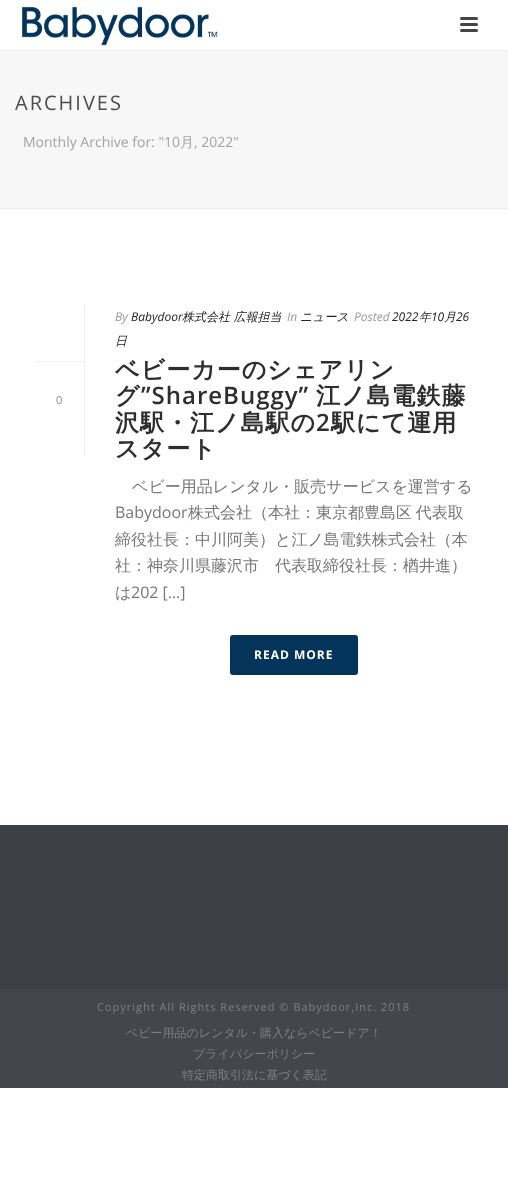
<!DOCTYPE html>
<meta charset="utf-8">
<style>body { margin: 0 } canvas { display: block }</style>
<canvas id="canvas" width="508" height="1187"></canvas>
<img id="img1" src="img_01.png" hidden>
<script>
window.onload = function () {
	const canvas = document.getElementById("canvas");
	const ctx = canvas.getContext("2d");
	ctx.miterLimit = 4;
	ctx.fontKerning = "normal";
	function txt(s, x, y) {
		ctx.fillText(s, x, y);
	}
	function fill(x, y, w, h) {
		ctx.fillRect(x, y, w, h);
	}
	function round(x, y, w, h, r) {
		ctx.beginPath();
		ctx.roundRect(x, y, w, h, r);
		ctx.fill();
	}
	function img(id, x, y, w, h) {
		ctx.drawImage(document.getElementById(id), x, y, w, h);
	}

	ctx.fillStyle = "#FFFFFF";
	fill(0, 0, 508, 1187);
	ctx.fillStyle = "#F7F7F7";
	fill(0, 51, 508, 157);
	ctx.fillStyle = "#EDEDED";
	fill(0, 208, 508, 1);
	fill(0, 50, 508, 1);
	img("img1", 22, 6, 196, 40);
	ctx.fillStyle = "#444444";
	round(460, 17, 18, 3, 1.5);
	round(460, 23, 18, 3, 1.5);
	round(460, 29, 18, 3, 1.5);
	ctx.fillStyle = "#EFEFEF";
	fill(84, 305, 1, 150);
	fill(35, 361, 49, 1);
	ctx.fillStyle = "#04345A";
	round(230, 635, 128, 40, 3);
	ctx.fillStyle = "#3D4045";
	fill(0, 825, 508, 164);
	ctx.fillStyle = "#43474D";
	fill(0, 989, 508, 99);
	ctx.letterSpacing = "2px";
	ctx.font = "20px Open Sans";
	ctx.fillStyle = "#4D4D4D";
	txt("ARCHIVES", 15, 110);
	ctx.letterSpacing = "0px";
	ctx.font = "14px Open Sans";
	ctx.fillStyle = "#A3A3A3";
	txt("Monthly Archive for: \"10", 23, 147);
	ctx.font = "500 14px WenQuanYi Zen Hei";
	txt("月", 180, 147);
	ctx.font = "14px Open Sans";
	txt(", 2022\"", 194, 147);
	ctx.font = "11px Open Sans";
	ctx.fillStyle = "#898989";
	txt("0", 56, 404);
	ctx.font = "italic 12px Open Sans";
	ctx.fillStyle = "#999999";
	txt("By", 115, 321);
	ctx.fillStyle = "#252525";
	txt("Babydoor", 131, 321);
	ctx.font = "italic 500 12px WenQuanYi Zen Hei";
	txt("株式会社 広報担当", 182, 321);
	ctx.font = "italic 12px Open Sans";
	ctx.fillStyle = "#999999";
	txt("In", 287, 321);
	ctx.font = "italic 500 12px WenQuanYi Zen Hei";
	ctx.fillStyle = "#252525";
	txt("ニュース", 300, 321);
	ctx.font = "italic 12px Open Sans";
	ctx.fillStyle = "#999999";
	txt("Posted", 354, 321);
	ctx.fillStyle = "#252525";
	txt("2022", 392, 321);
	ctx.font = "italic 500 12px WenQuanYi Zen Hei";
	txt("年", 419, 321);
	ctx.font = "italic 12px Open Sans";
	txt("10", 431, 321);
	ctx.font = "italic 500 12px WenQuanYi Zen Hei";
	txt("月", 444, 321);
	ctx.font = "italic 12px Open Sans";
	txt("26", 456, 321);
	ctx.font = "italic 500 12px WenQuanYi Zen Hei";
	txt("日", 115, 345);
	ctx.letterSpacing = "1px";
	ctx.font = "bold 24px WenQuanYi Zen Hei";
	ctx.fillStyle = "#2E2E2E";
	txt("ベビーカーのシェアリン", 115, 378);
	txt("グ", 115, 404);
	ctx.font = "600 24px Open Sans";
	txt("”ShareBuggy”", 141, 404);
	ctx.font = "bold 24px WenQuanYi Zen Hei";
	txt("江ノ島電鉄藤", 316, 404);
	txt("沢駅・江ノ島駅の", 115, 431);
	ctx.font = "600 24px Open Sans";
	txt("2", 316, 431);
	ctx.font = "bold 24px WenQuanYi Zen Hei";
	txt("駅にて運用", 331, 431);
	txt("スタート", 115, 457);
	ctx.letterSpacing = "0px";
	ctx.font = "500 16px WenQuanYi Zen Hei";
	ctx.fillStyle = "#777777";
	txt("ベビー用品レンタル・販売サービスを運営する", 132, 492);
	ctx.font = "16px Open Sans";
	txt("Babydoor", 115, 518);
	ctx.wordSpacing = "-1px";
	ctx.font = "500 16px WenQuanYi Zen Hei";
	txt("株式会社（本社：東京都豊島区 代表取", 188, 518);
	ctx.wordSpacing = "0px";
	txt("締役社長：中川阿美）と江ノ島電鉄株式会社（本", 115, 545);
	txt("社：神奈川県藤沢市　代表取締役社長：楢井進）", 115, 571);
	txt("は", 115, 598);
	ctx.font = "16px Open Sans";
	txt("202 […]", 131, 598);
	ctx.letterSpacing = "1px";
	ctx.font = "bold 12px Open Sans";
	ctx.fillStyle = "#FFFFFF";
	txt("READ MORE", 254, 659);
	ctx.font = "11px Open Sans";
	ctx.fillStyle = "#7D8083";
	txt("Copyright All Rights Reserved © Babydoor,Inc. 2018", 97, 1011);
	ctx.letterSpacing = "0px";
	ctx.font = "500 12px WenQuanYi Zen Hei";
	txt("ベビー用品のレンタル・購入ならベビードア！", 126, 1037);
	txt("プライバシーポリシー", 193, 1058);
	txt("特定商取引法に基づく表記", 182, 1079);
};
</script>
